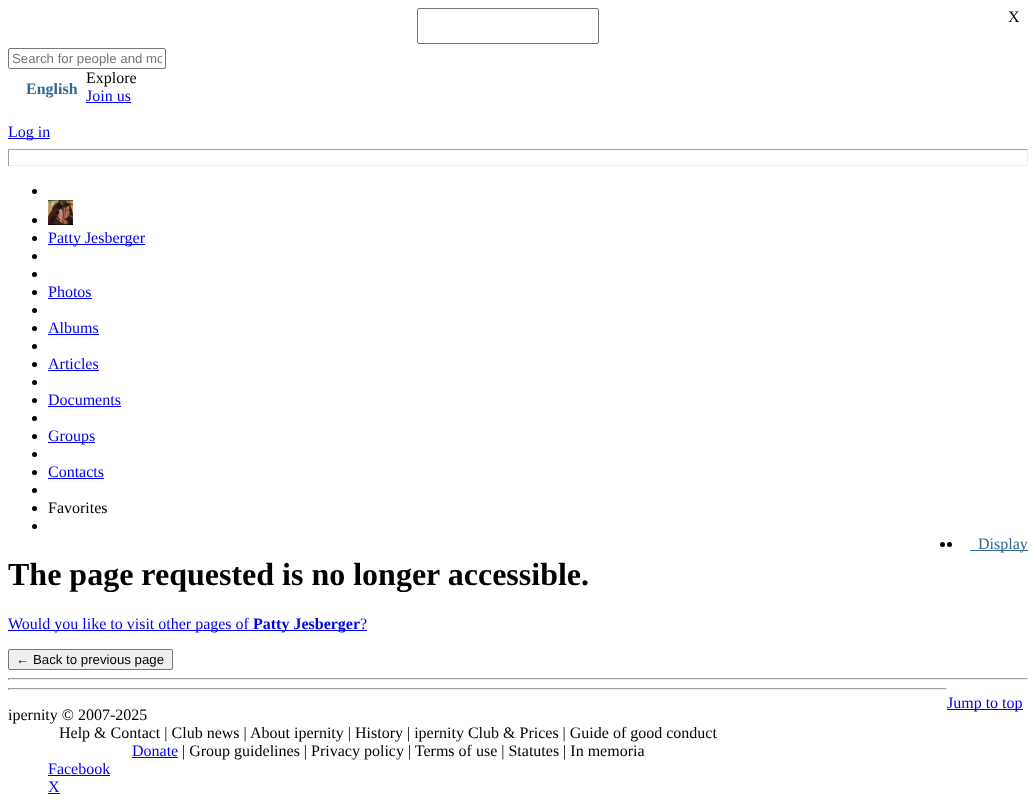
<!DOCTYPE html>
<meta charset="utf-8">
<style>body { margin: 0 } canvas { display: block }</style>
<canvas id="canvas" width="1036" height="808"></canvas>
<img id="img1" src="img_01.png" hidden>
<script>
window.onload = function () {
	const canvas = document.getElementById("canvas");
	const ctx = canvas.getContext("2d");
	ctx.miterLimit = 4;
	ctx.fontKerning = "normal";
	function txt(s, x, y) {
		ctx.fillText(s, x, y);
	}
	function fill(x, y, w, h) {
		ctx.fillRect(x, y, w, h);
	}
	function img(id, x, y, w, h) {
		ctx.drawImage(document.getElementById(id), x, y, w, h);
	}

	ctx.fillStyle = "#FFFFFF";
	fill(0, 0, 1036, 808);
	ctx.beginPath();
	ctx.roundRect(417.5, 8.5, 181, 35, 1.5);
	ctx.strokeStyle = "#767676";
	ctx.stroke();
	ctx.beginPath();
	ctx.roundRect(8.5, 48.5, 157, 20, 1.5);
	ctx.stroke();
	ctx.fillStyle = "#0000EE";
	fill(86, 102, 45, 1);
	fill(8, 138, 42, 1);
	ctx.fillStyle = "#9F9F9F";
	fill(8, 149, 1020, 1);
	ctx.fillStyle = "#EEEEEE";
	fill(1027, 149, 1, 17);
	fill(8, 165, 1020, 1);
	ctx.fillStyle = "#9F9F9F";
	fill(8, 149, 1, 17);
	ctx.fillStyle = "#000000";
	ctx.beginPath();
	ctx.arc(34.5, 191.5, 2.5, 0, Math.PI * 2);
	ctx.fill();
	ctx.beginPath();
	ctx.arc(34.5, 220.5, 2.5, 0, Math.PI * 2);
	ctx.fill();
	img("img1", 48, 200, 25, 25);
	ctx.beginPath();
	ctx.arc(34.5, 238.5, 2.5, 0, Math.PI * 2);
	ctx.fill();
	ctx.fillStyle = "#0000EE";
	fill(48, 244, 97, 1);
	ctx.fillStyle = "#000000";
	ctx.beginPath();
	ctx.arc(34.5, 256.5, 2.5, 0, Math.PI * 2);
	ctx.fill();
	ctx.beginPath();
	ctx.arc(34.5, 274.5, 2.5, 0, Math.PI * 2);
	ctx.fill();
	ctx.beginPath();
	ctx.arc(34.5, 292.5, 2.5, 0, Math.PI * 2);
	ctx.fill();
	ctx.fillStyle = "#0000EE";
	fill(48, 298, 44, 1);
	ctx.fillStyle = "#000000";
	ctx.beginPath();
	ctx.arc(34.5, 310.5, 2.5, 0, Math.PI * 2);
	ctx.fill();
	ctx.beginPath();
	ctx.arc(34.5, 328.5, 2.5, 0, Math.PI * 2);
	ctx.fill();
	ctx.fillStyle = "#0000EE";
	fill(48, 334, 51, 1);
	ctx.fillStyle = "#000000";
	ctx.beginPath();
	ctx.arc(34.5, 346.5, 2.5, 0, Math.PI * 2);
	ctx.fill();
	ctx.beginPath();
	ctx.arc(34.5, 364.5, 2.5, 0, Math.PI * 2);
	ctx.fill();
	ctx.fillStyle = "#0000EE";
	fill(48, 370, 51, 1);
	ctx.fillStyle = "#000000";
	ctx.beginPath();
	ctx.arc(34.5, 382.5, 2.5, 0, Math.PI * 2);
	ctx.fill();
	ctx.beginPath();
	ctx.arc(34.5, 400.5, 2.5, 0, Math.PI * 2);
	ctx.fill();
	ctx.fillStyle = "#0000EE";
	fill(48, 406, 73, 1);
	ctx.fillStyle = "#000000";
	ctx.beginPath();
	ctx.arc(34.5, 418.5, 2.5, 0, Math.PI * 2);
	ctx.fill();
	ctx.beginPath();
	ctx.arc(34.5, 436.5, 2.5, 0, Math.PI * 2);
	ctx.fill();
	ctx.fillStyle = "#0000EE";
	fill(48, 442, 47, 1);
	ctx.fillStyle = "#000000";
	ctx.beginPath();
	ctx.arc(34.5, 454.5, 2.5, 0, Math.PI * 2);
	ctx.fill();
	ctx.beginPath();
	ctx.arc(34.5, 472.5, 2.5, 0, Math.PI * 2);
	ctx.fill();
	ctx.fillStyle = "#0000EE";
	fill(48, 478, 56, 1);
	ctx.fillStyle = "#000000";
	ctx.beginPath();
	ctx.arc(34.5, 490.5, 2.5, 0, Math.PI * 2);
	ctx.fill();
	ctx.beginPath();
	ctx.arc(34.5, 508.5, 2.5, 0, Math.PI * 2);
	ctx.fill();
	ctx.beginPath();
	ctx.arc(34.5, 526.5, 2.5, 0, Math.PI * 2);
	ctx.fill();
	ctx.beginPath();
	ctx.arc(942.5, 544.5, 2.5, 0, Math.PI * 2);
	ctx.fill();
	ctx.beginPath();
	ctx.arc(949.5, 544.5, 2.5, 0, Math.PI * 2);
	ctx.fill();
	ctx.fillStyle = "#336699";
	fill(970, 550, 58, 1);
	ctx.fillStyle = "#0000EE";
	fill(8, 630, 359, 1);
	ctx.fillStyle = "#EFEFEF";
	ctx.beginPath();
	ctx.roundRect(8.5, 649.5, 164, 20, 1.5);
	ctx.fill();
	ctx.stroke();
	ctx.fillStyle = "#9F9F9F";
	fill(8, 678, 1020, 1);
	ctx.fillStyle = "#EEEEEE";
	fill(1027, 678, 1, 2);
	fill(8, 679, 1020, 1);
	ctx.fillStyle = "#9F9F9F";
	fill(8, 678, 1, 2);
	fill(8, 688, 939, 1);
	ctx.fillStyle = "#EEEEEE";
	fill(946, 688, 1, 2);
	fill(8, 689, 939, 1);
	ctx.fillStyle = "#9F9F9F";
	fill(8, 688, 1, 2);
	ctx.fillStyle = "#0000EE";
	fill(947, 709, 76, 1);
	fill(132, 757, 46, 1);
	fill(48, 775, 62, 1);
	fill(48, 793, 12, 1);
	ctx.font = "16px Liberation Serif";
	ctx.fillStyle = "#000000";
	txt("X", 1008, 22);
	ctx.save();
	ctx.beginPath();
	ctx.rect(12, 51, 150, 15);
	ctx.clip();
	ctx.font = "13.25px Liberation Sans";
	ctx.fillStyle = "#757575";
	txt("Search for people and mo", 12, 63);
	ctx.restore();
	txt("Explore", 86, 83);
	ctx.font = "bold 16px Liberation Serif";
	ctx.fillStyle = "#336699";
	txt("English", 26, 94);
	ctx.font = "16px Liberation Serif";
	ctx.fillStyle = "#0000EE";
	txt("Join us", 86, 101);
	txt("Log in", 8, 137);
	txt("Patty Jesberger", 48, 243);
	txt("Photos", 48, 297);
	txt("Albums", 48, 333);
	txt("Articles", 48, 369);
	txt("Documents", 48, 405);
	txt("Groups", 48, 441);
	txt("Contacts", 48, 477);
	ctx.fillStyle = "#000000";
	txt("Favorites", 48, 513);
	ctx.fillStyle = "#336699";
	txt("Display", 978, 549);
	ctx.font = "bold 32px Liberation Serif";
	ctx.fillStyle = "#000000";
	txt("The page requested is no longer accessible.", 8, 585);
	ctx.font = "16px Liberation Serif";
	ctx.fillStyle = "#0000EE";
	txt("Would you like to visit other pages of", 8, 629);
	ctx.font = "bold 16px Liberation Serif";
	txt("Patty Jesberger", 253, 629);
	ctx.font = "16px Liberation Serif";
	txt("?", 360, 629);
	ctx.font = "13.25px Liberation Sans";
	ctx.fillStyle = "#000000";
	txt("← Back to previous page", 16, 664);
	ctx.font = "16px Liberation Serif";
	ctx.fillStyle = "#0000EE";
	txt("Jump to top", 947, 708);
	ctx.fillStyle = "#000000";
	txt("ipernity © 2007-2025", 8, 720);
	txt("Help & Contact | Club news |", 59, 738);
	txt("About ipernity | History | ipernity Club & Prices | Guide of good conduct", 250, 738);
	ctx.fillStyle = "#0000EE";
	txt("Donate", 132, 756);
	ctx.fillStyle = "#000000";
	txt("| Group guidelines | Privacy policy | Terms of use | Statutes | In memoria", 182, 756);
	ctx.fillStyle = "#0000EE";
	txt("Facebook", 48, 774);
	txt("X", 48, 792);
};
</script>
